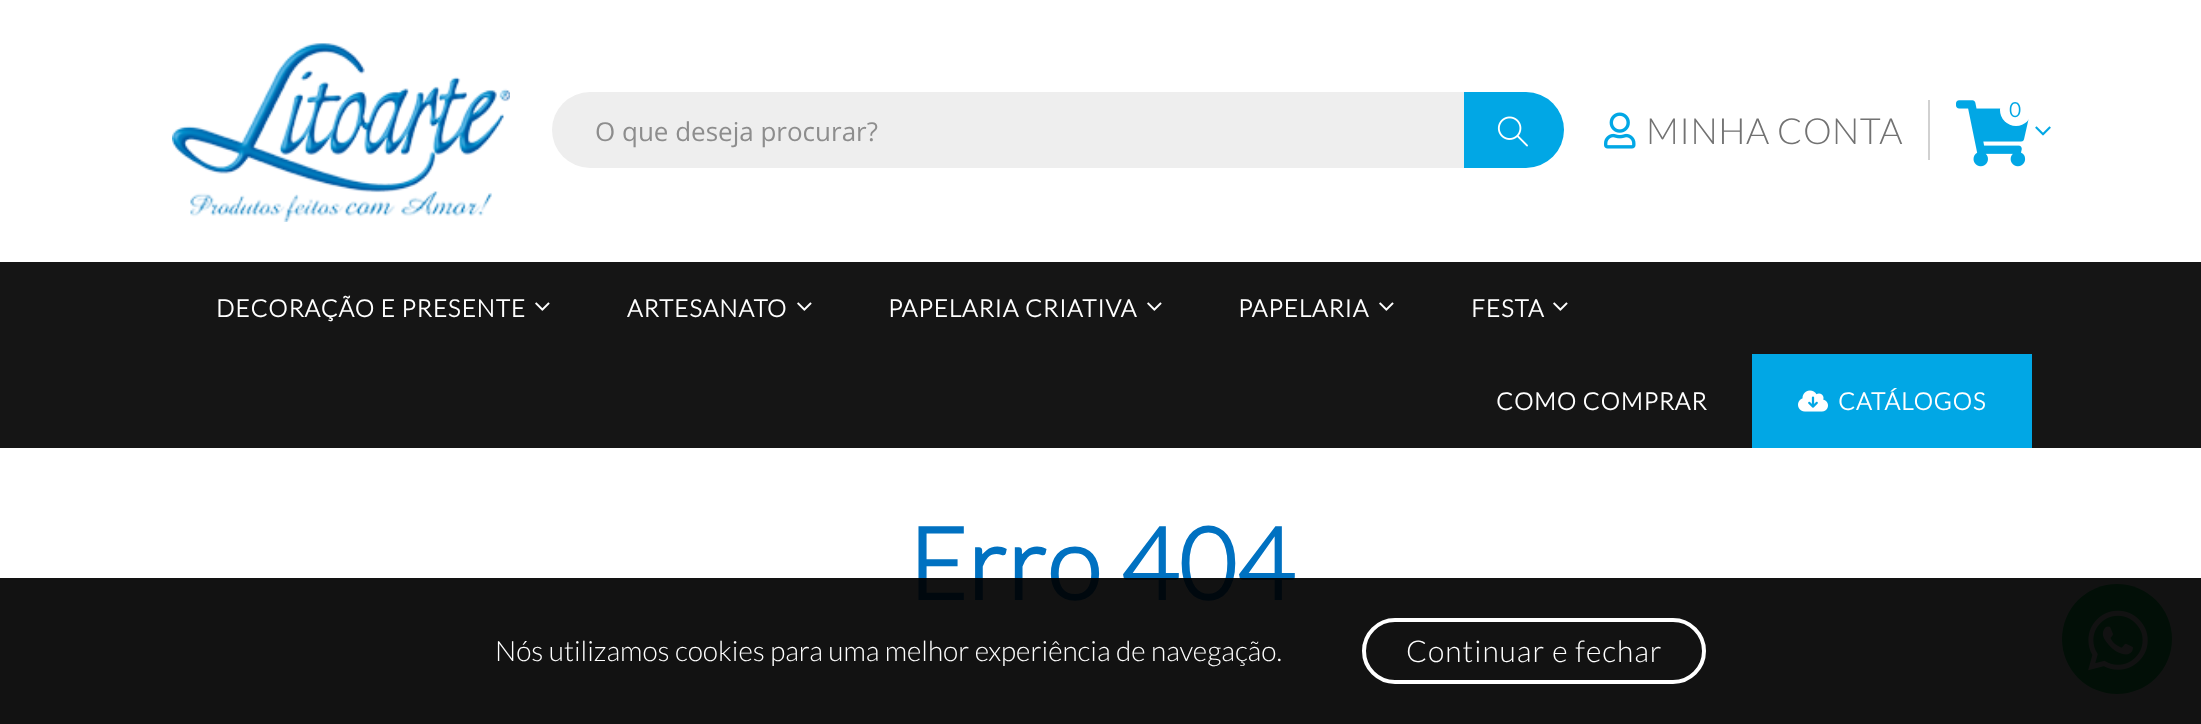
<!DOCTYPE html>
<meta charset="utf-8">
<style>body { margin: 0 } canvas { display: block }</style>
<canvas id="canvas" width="2201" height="724"></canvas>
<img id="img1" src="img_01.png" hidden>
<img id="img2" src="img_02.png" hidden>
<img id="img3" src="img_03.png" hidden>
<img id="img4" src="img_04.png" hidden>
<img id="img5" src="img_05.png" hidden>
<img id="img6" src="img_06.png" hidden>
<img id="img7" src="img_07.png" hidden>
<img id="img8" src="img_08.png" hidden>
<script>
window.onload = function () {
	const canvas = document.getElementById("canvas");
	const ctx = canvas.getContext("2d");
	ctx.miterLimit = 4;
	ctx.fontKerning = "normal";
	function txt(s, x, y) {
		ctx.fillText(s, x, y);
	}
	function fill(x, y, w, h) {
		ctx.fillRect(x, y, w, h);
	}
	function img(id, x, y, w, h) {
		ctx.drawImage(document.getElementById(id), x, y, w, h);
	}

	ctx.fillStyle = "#FFFFFF";
	fill(0, 0, 2201, 724);
	img("img1", 172, 43, 338, 179);
	ctx.fillStyle = "#EEEEEE";
	ctx.beginPath();
	ctx.roundRect(552, 92, 912, 76, [38, 0, 0, 38]);
	ctx.fill();
	ctx.fillStyle = "#01A7E5";
	ctx.beginPath();
	ctx.roundRect(1464, 92, 100, 76, [0, 38, 38, 0]);
	ctx.fill();
	img("img2", 1497, 116, 31, 31);
	ctx.fillStyle = "#D1D1D1";
	fill(1928, 100, 2, 60);
	img("img3", 1956, 100, 73, 67);
	ctx.fillStyle = "#FFFFFF";
	ctx.beginPath();
	ctx.arc(2016, 110, 16, 0, Math.PI * 2);
	ctx.fill();
	img("img4", 2035, 126, 16, 10);
	img("img5", 1604, 112, 32, 37);
	ctx.fillStyle = "#151515";
	fill(0, 262, 2201, 186);
	img("img6", 535, 302, 15, 9);
	img("img6", 797, 302, 15, 9);
	img("img6", 1147, 302, 15, 9);
	img("img6", 1379, 302, 15, 9);
	img("img6", 1553, 302, 15, 9);
	ctx.fillStyle = "#01A7E5";
	fill(1752, 354, 280, 94);
	img("img7", 1798, 390, 30, 22);
	ctx.fillStyle = "#25D366";
	ctx.beginPath();
	ctx.arc(2117, 639, 55, 0, Math.PI * 2);
	ctx.fill();
	img("img8", 2088, 610, 60, 61);
	ctx.font = "26px Open Sans";
	ctx.fillStyle = "#8D8D8D";
	txt("O que deseja procurar?", 595, 141);
	ctx.font = "bold 20px Lato";
	ctx.fillStyle = "#01A7E5";
	txt("0", 2009, 117);
	ctx.letterSpacing = "0.5px";
	ctx.font = "300 36px Lato";
	ctx.fillStyle = "#727272";
	txt("MINHA CONTA", 1646, 144);
	ctx.letterSpacing = "1px";
	ctx.font = "bold 24px Lato";
	ctx.fillStyle = "#FFFFFF";
	txt("DECORAÇÃO E PRESENTE", 216, 317);
	txt("ARTESANATO", 627, 317);
	txt("PAPELARIA CRIATIVA", 888, 317);
	txt("PAPELARIA", 1238, 317);
	txt("FESTA", 1471, 317);
	txt("COMO COMPRAR", 1496, 410);
	txt("CATÁLOGOS", 1838, 410);
	ctx.letterSpacing = "0px";
	ctx.font = "bold 100px Lato";
	ctx.fillStyle = "#0071C1";
	txt("Erro 404", 908, 600);
	ctx.fillStyle = "rgba(0, 0, 0, 0.93)";
	fill(0, 578, 2201, 146);
	ctx.font = "300 28px Lato";
	ctx.fillStyle = "#FFFFFF";
	txt("Nós utilizamos cookies para uma melhor experiência de navegação.", 495, 661);
	ctx.beginPath();
	ctx.roundRect(1364, 620, 340, 62, 31);
	ctx.strokeStyle = "#FFFFFF";
	ctx.lineWidth = 4;
	ctx.stroke();
	ctx.letterSpacing = "1px";
	ctx.font = "300 30px Lato";
	txt("Continuar e fechar", 1406, 662);
};
</script>
